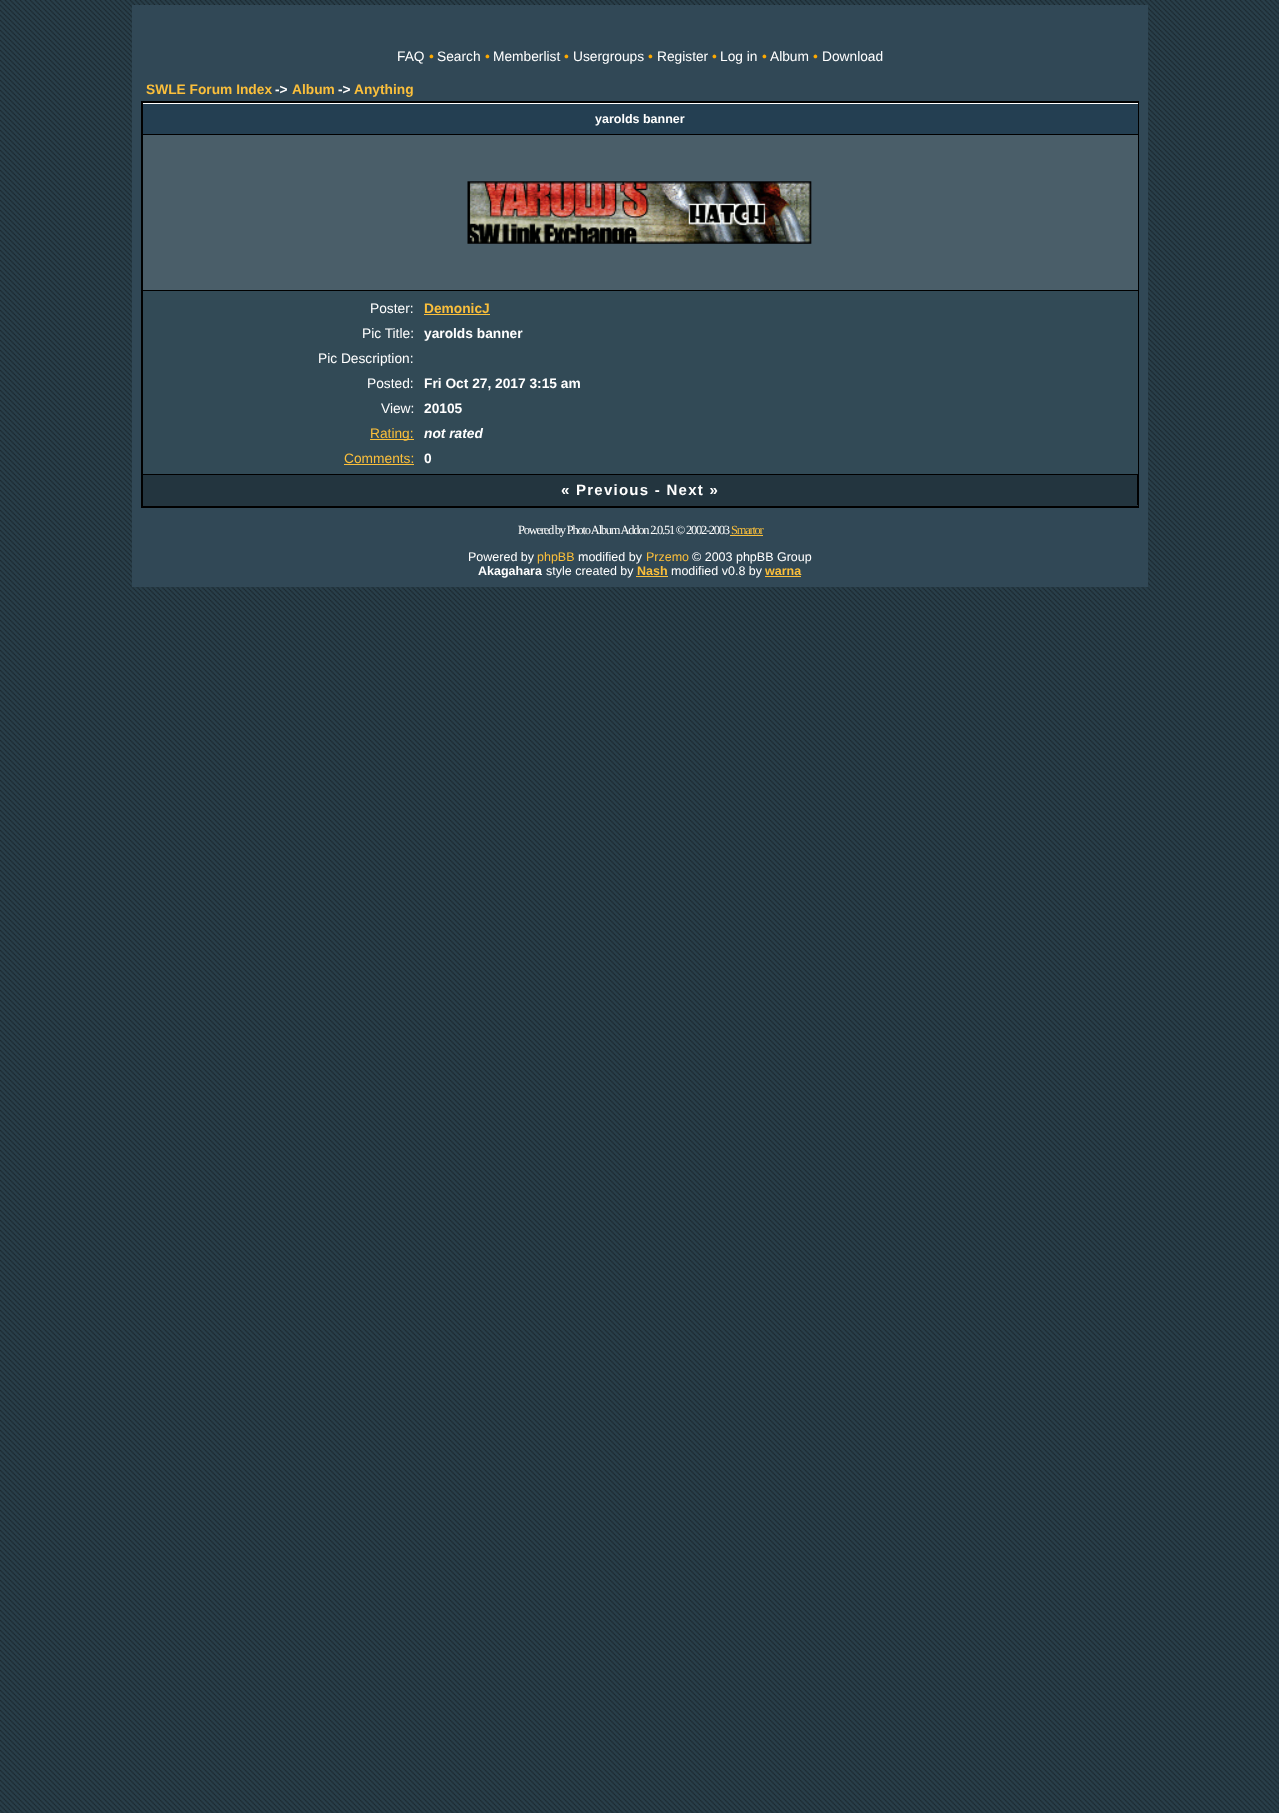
<!DOCTYPE html>
<meta charset="utf-8">
<style>body { margin: 0 } canvas { display: block }</style>
<canvas id="canvas" width="1279" height="1813"></canvas>
<img id="img1" src="img_01.png" hidden>
<img id="img2" src="img_02.png" hidden>
<script>
window.onload = function () {
	const canvas = document.getElementById("canvas");
	const ctx = canvas.getContext("2d");
	ctx.miterLimit = 4;
	ctx.fontKerning = "normal";
	function txt(s, x, y) {
		ctx.fillText(s, x, y);
	}
	function fill(x, y, w, h) {
		ctx.fillRect(x, y, w, h);
	}
	function img(id, x, y, w, h) {
		ctx.drawImage(document.getElementById(id), x, y, w, h);
	}

	ctx.fillStyle = "#FFFFFF";
	fill(0, 0, 1279, 1813);
	img("img1", 0, 0, 1279, 1813);
	ctx.fillStyle = "#314856";
	fill(132, 5, 1016, 582);
	ctx.fillStyle = "#000000";
	fill(141, 101, 998, 407);
	ctx.fillStyle = "#243F52";
	fill(143, 104, 995, 30);
	ctx.fillStyle = "#FFFFFF";
	fill(143, 103, 995, 1);
	ctx.fillStyle = "#4A5E69";
	fill(143, 135, 995, 155);
	img("img2", 467, 181, 345, 63);
	ctx.fillStyle = "#324A56";
	fill(143, 291, 995, 183);
	ctx.fillStyle = "#FBBF3B";
	fill(424, 314, 66, 1);
	fill(370, 439, 44, 1);
	fill(344, 464, 70, 1);
	ctx.fillStyle = "#23353F";
	fill(144, 475, 992, 30);
	fill(1136, 475, 1, 31);
	fill(143, 505, 995, 1);
	fill(143, 475, 1, 31);
	ctx.fillStyle = "#FBBF3B";
	fill(730, 535, 33, 1);
	fill(636, 576, 32, 1);
	fill(765, 576, 36, 1);
	ctx.font = "13.75px Liberation Sans";
	ctx.fillStyle = "#FFFFFF";
	txt("FAQ", 397, 61);
	ctx.fillStyle = "#FFAA00";
	txt("•", 429, 61);
	ctx.fillStyle = "#FFFFFF";
	txt("Search", 437, 61);
	ctx.fillStyle = "#FFAA00";
	txt("•", 485, 61);
	ctx.fillStyle = "#FFFFFF";
	txt("Memberlist", 493, 61);
	ctx.fillStyle = "#FFAA00";
	txt("•", 564, 61);
	ctx.fillStyle = "#FFFFFF";
	txt("Usergroups", 573, 61);
	ctx.fillStyle = "#FFAA00";
	txt("•", 648, 61);
	ctx.fillStyle = "#FFFFFF";
	txt("Register", 657, 61);
	ctx.fillStyle = "#FFAA00";
	txt("•", 712, 61);
	ctx.fillStyle = "#FFFFFF";
	txt("Log in", 720, 61);
	ctx.fillStyle = "#FFAA00";
	txt("•", 762, 61);
	ctx.fillStyle = "#FFFFFF";
	txt("Album", 770, 61);
	ctx.fillStyle = "#FFAA00";
	txt("•", 813, 61);
	ctx.fillStyle = "#FFFFFF";
	txt("Download", 822, 61);
	ctx.font = "bold 13.75px Liberation Sans";
	ctx.fillStyle = "#FBBF3B";
	txt("SWLE Forum Index", 146, 94);
	ctx.fillStyle = "#FFFFFF";
	txt("->", 275, 94);
	ctx.fillStyle = "#FBBF3B";
	txt("Album", 292, 94);
	ctx.fillStyle = "#FFFFFF";
	txt("->", 338, 94);
	ctx.fillStyle = "#FBBF3B";
	txt("Anything", 354, 94);
	ctx.font = "bold 12.5px Liberation Sans";
	ctx.fillStyle = "#FFFFFF";
	txt("yarolds banner", 595, 123);
	ctx.font = "13.75px Liberation Sans";
	txt("Poster:", 370, 313);
	ctx.font = "bold 13.75px Liberation Sans";
	ctx.fillStyle = "#FBBF3B";
	txt("DemonicJ", 424, 313);
	ctx.font = "13.75px Liberation Sans";
	ctx.fillStyle = "#FFFFFF";
	txt("Pic Title:", 362, 338);
	ctx.font = "bold 13.75px Liberation Sans";
	txt("yarolds banner", 424, 338);
	ctx.font = "13.75px Liberation Sans";
	txt("Pic Description:", 318, 363);
	txt("Posted:", 367, 388);
	ctx.font = "bold 13.75px Liberation Sans";
	txt("Fri Oct 27, 2017 3:15 am", 424, 388);
	ctx.font = "13.75px Liberation Sans";
	txt("View:", 381, 413);
	ctx.font = "bold 13.75px Liberation Sans";
	txt("20105", 424, 413);
	ctx.font = "13.75px Liberation Sans";
	ctx.fillStyle = "#FBBF3B";
	txt("Rating:", 370, 438);
	ctx.font = "italic bold 13.75px Liberation Sans";
	ctx.fillStyle = "#FFFFFF";
	txt("not rated", 424, 438);
	ctx.font = "13.75px Liberation Sans";
	ctx.fillStyle = "#FBBF3B";
	txt("Comments:", 344, 463);
	ctx.font = "bold 13.75px Liberation Sans";
	ctx.fillStyle = "#FFFFFF";
	txt("0", 424, 463);
	ctx.letterSpacing = "1.25px";
	ctx.font = "bold 15px Liberation Sans";
	txt("« Previous - Next »", 561, 495);
	ctx.letterSpacing = "-1.25px";
	ctx.font = "12.5px Liberation Serif";
	txt("Powered by Photo Album Addon 2.0.51 © 2002-2003", 518, 534);
	ctx.fillStyle = "#FBBF3B";
	txt("Smartor", 731, 534);
	ctx.letterSpacing = "0px";
	ctx.font = "12.5px Liberation Sans";
	ctx.fillStyle = "#FFFFFF";
	txt("Powered by", 468, 561);
	ctx.fillStyle = "#FBBF3B";
	txt("phpBB", 537, 561);
	ctx.fillStyle = "#FFFFFF";
	txt("modified by", 578, 561);
	ctx.fillStyle = "#FBBF3B";
	txt("Przemo", 646, 561);
	ctx.fillStyle = "#FFFFFF";
	txt("© 2003 phpBB Group", 692, 561);
	ctx.font = "bold 12.5px Liberation Sans";
	txt("Akagahara", 478, 575);
	ctx.font = "12.5px Liberation Sans";
	txt("style created by", 546, 575);
	ctx.font = "bold 12.5px Liberation Sans";
	ctx.fillStyle = "#FBBF3B";
	txt("Nash", 637, 575);
	ctx.font = "12.5px Liberation Sans";
	ctx.fillStyle = "#FFFFFF";
	txt("modified v0.8 by", 671, 575);
	ctx.font = "bold 12.5px Liberation Sans";
	ctx.fillStyle = "#FBBF3B";
	txt("warna", 765, 575);
};
</script>
